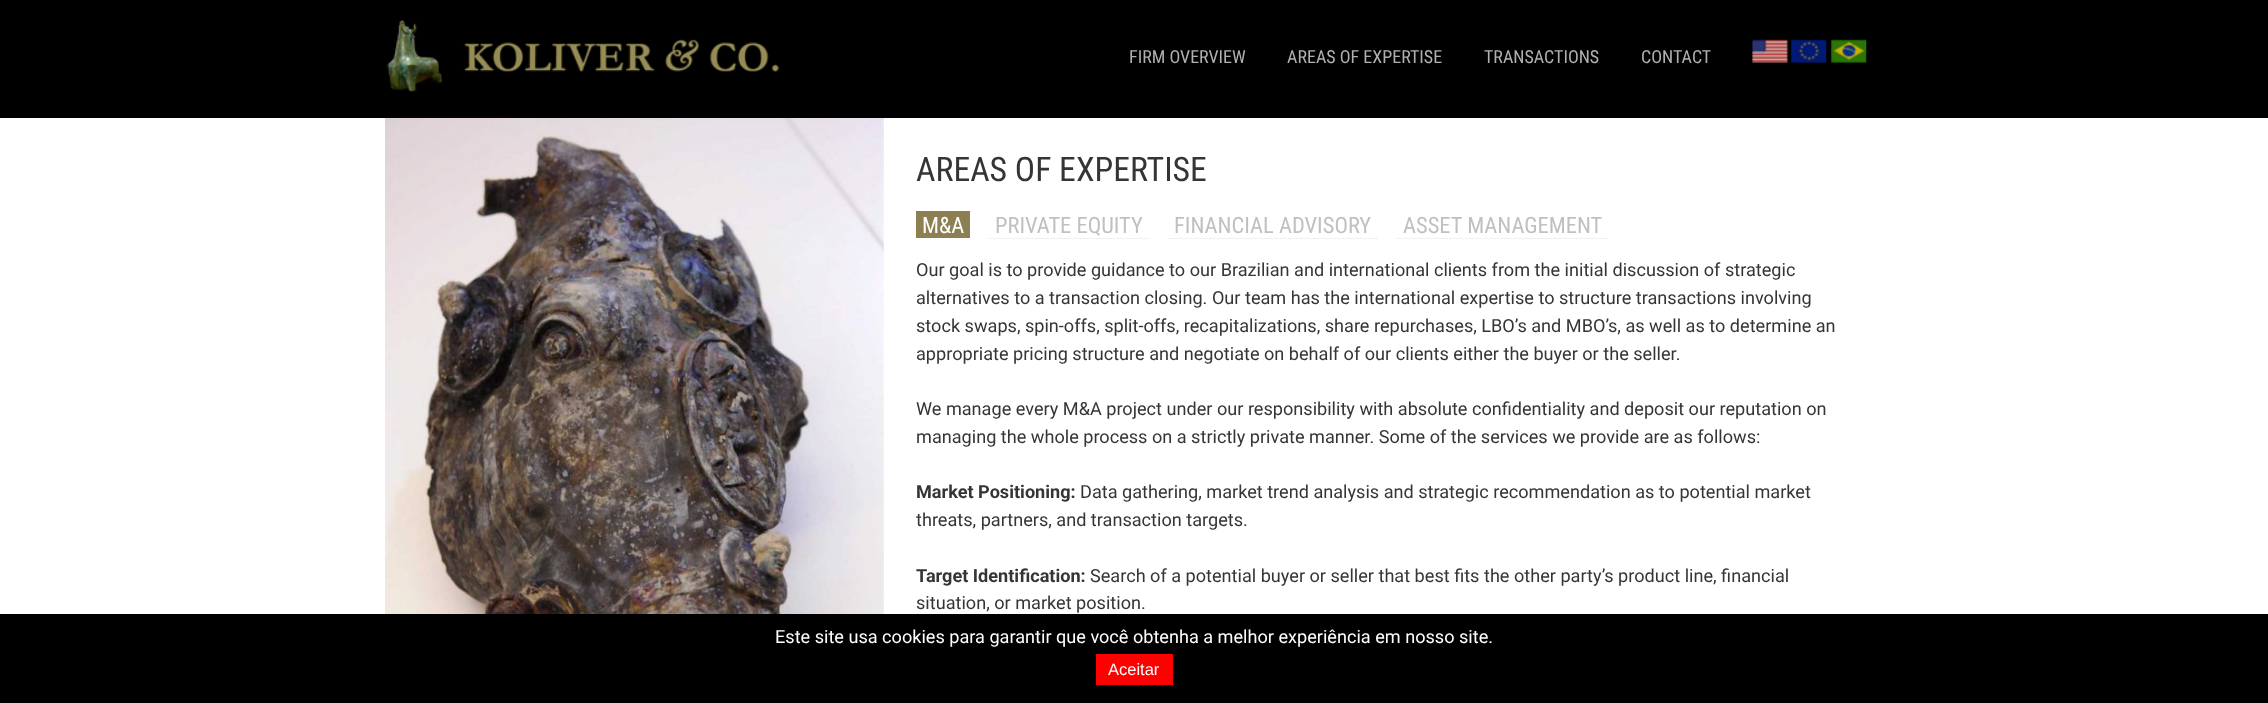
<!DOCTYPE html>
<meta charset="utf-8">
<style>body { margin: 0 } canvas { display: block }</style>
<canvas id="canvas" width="2268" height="703"></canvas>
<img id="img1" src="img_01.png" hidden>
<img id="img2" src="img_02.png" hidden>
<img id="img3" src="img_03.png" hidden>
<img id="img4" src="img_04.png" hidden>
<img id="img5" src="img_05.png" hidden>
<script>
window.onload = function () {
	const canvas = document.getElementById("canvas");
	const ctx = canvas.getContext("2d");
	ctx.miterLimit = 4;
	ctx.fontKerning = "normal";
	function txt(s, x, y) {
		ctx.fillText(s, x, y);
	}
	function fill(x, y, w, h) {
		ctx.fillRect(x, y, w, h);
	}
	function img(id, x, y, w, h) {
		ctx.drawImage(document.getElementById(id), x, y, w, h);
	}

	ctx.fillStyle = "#FFFFFF";
	fill(0, 0, 2268, 703);
	ctx.fillStyle = "#000000";
	fill(0, 0, 2268, 118);
	img("img1", 387, 20, 392, 72);
	img("img2", 1752, 39, 37, 24);
	img("img3", 1791, 39, 36, 24);
	img("img4", 1831, 39, 36, 24);
	img("img5", 385, 118, 499, 496);
	ctx.fillStyle = "#8C7F52";
	fill(916, 211, 54, 27);
	ctx.fillStyle = "#F0F0F0";
	fill(989, 238, 160, 1);
	fill(1168, 238, 210, 1);
	fill(1396, 238, 213, 1);
	ctx.fillStyle = "#000000";
	fill(0, 614, 2268, 89);
	ctx.fillStyle = "#FF0000";
	fill(1096, 654, 77, 31);
	ctx.font = "18px Roboto Condensed";
	ctx.fillStyle = "#B0B0B0";
	txt("FIRM OVERVIEW", 1129, 63);
	txt("AREAS OF EXPERTISE", 1287, 63);
	txt("TRANSACTIONS", 1484, 63);
	txt("CONTACT", 1641, 63);
	ctx.font = "33.75px Roboto Condensed";
	ctx.fillStyle = "#353535";
	txt("AREAS OF EXPERTISE", 916, 181);
	ctx.font = "22.5px Roboto Condensed";
	ctx.fillStyle = "#FFFFFF";
	txt("M&A", 922, 233);
	ctx.fillStyle = "#C0C0C0";
	txt("PRIVATE EQUITY", 995, 233);
	txt("FINANCIAL ADVISORY", 1174, 233);
	txt("ASSET MANAGEMENT", 1403, 233);
	ctx.font = "18.12px Roboto";
	ctx.fillStyle = "#353535";
	txt("Our goal is to provide guidance to our Brazilian and international clients from the initial discussion of strategic", 916, 276);
	txt("alternatives to a transaction closing. Our team has the international expertise to structure transactions involving", 916, 304);
	txt("stock swaps, spin-offs, split-offs, recapitalizations, share repurchases, LBO’s and MBO’s, as well as to determine an", 916, 332);
	txt("appropriate pricing structure and negotiate on behalf of our clients either the buyer or the seller.", 916, 360);
	txt("We manage every M&A project under our responsibility with absolute confidentiality and deposit our reputation on", 916, 415);
	txt("managing the whole process on a strictly private manner. Some of the services we provide are as follows:", 916, 443);
	ctx.font = "bold 18.12px Roboto";
	txt("Market Positioning:", 916, 498);
	ctx.font = "18.12px Roboto";
	txt("Data gathering, market trend analysis and strategic recommendation as to potential market", 1080, 498);
	txt("threats, partners, and transaction targets.", 916, 526);
	ctx.font = "bold 18.12px Roboto";
	txt("Target Identification:", 916, 582);
	ctx.font = "18.12px Roboto";
	txt("Search of a potential buyer or seller that best fits the other party’s product line, financial", 1090, 582);
	txt("situation, or market position.", 916, 609);
	ctx.fillStyle = "#FFFFFF";
	txt("Este site usa cookies para garantir que você obtenha a melhor experiência em nosso site.", 775, 643);
	ctx.font = "16.5px Liberation Sans";
	txt("Aceitar", 1108, 675);
};
</script>
